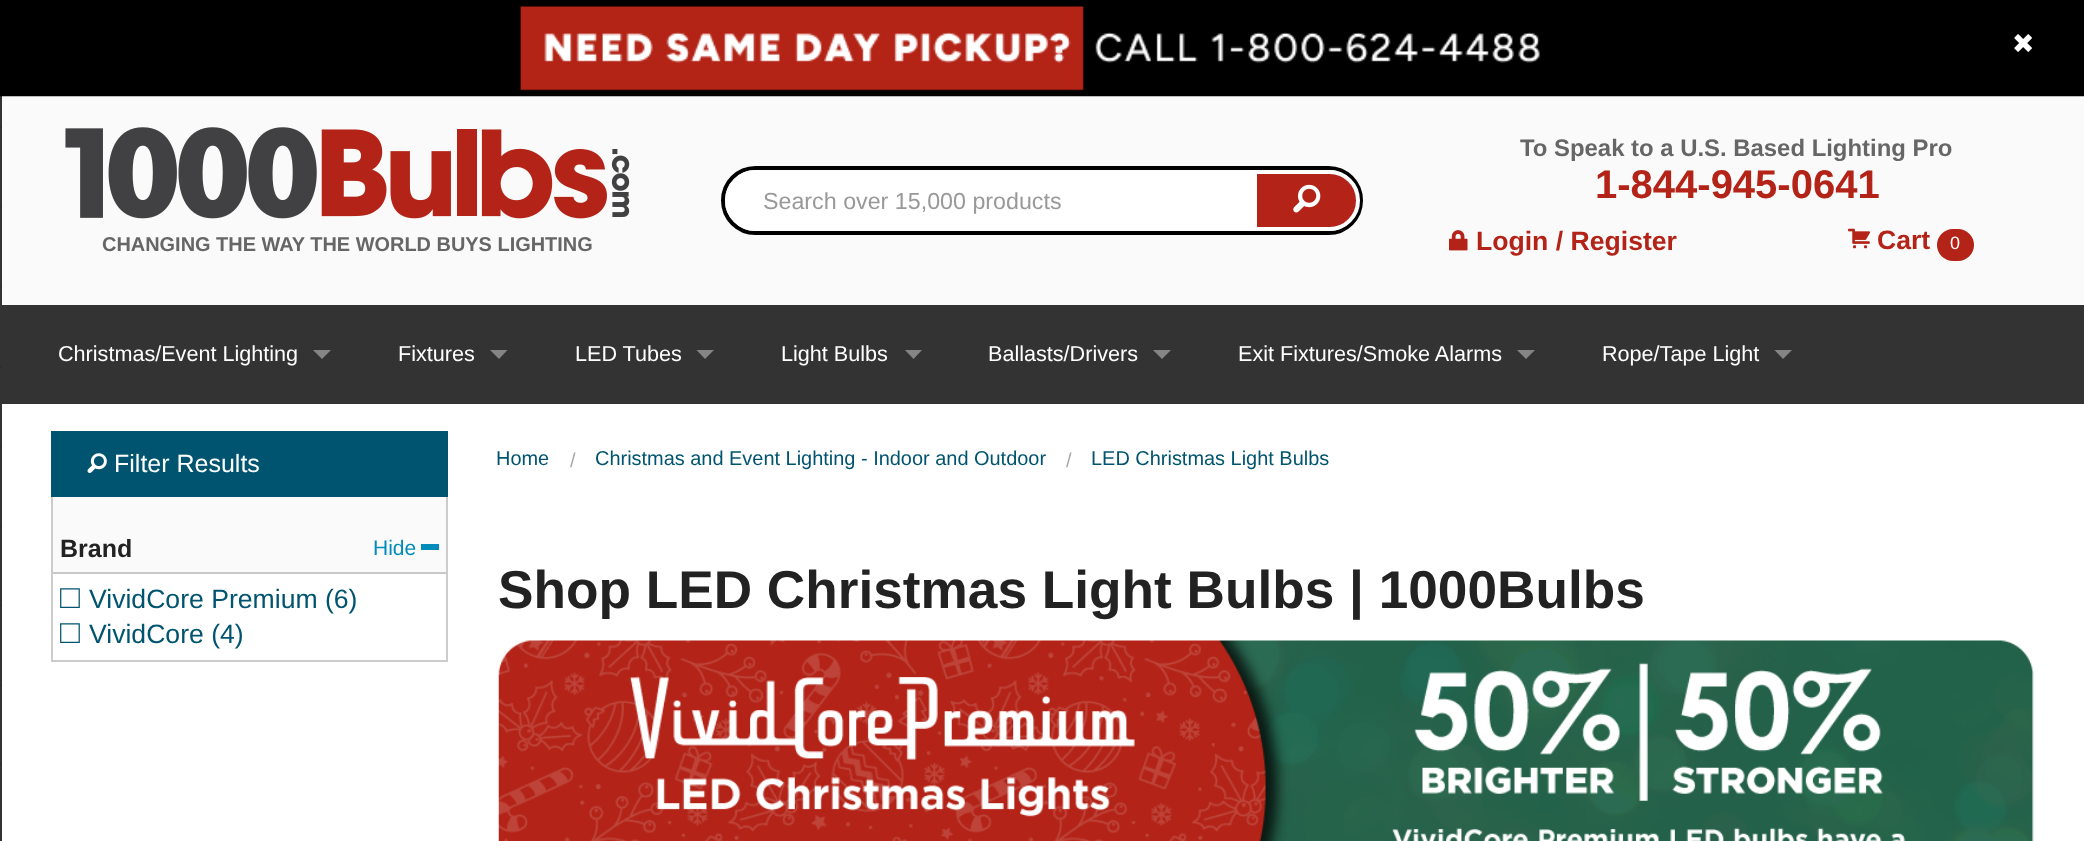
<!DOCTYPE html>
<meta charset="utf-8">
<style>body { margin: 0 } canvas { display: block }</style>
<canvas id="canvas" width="2084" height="841"></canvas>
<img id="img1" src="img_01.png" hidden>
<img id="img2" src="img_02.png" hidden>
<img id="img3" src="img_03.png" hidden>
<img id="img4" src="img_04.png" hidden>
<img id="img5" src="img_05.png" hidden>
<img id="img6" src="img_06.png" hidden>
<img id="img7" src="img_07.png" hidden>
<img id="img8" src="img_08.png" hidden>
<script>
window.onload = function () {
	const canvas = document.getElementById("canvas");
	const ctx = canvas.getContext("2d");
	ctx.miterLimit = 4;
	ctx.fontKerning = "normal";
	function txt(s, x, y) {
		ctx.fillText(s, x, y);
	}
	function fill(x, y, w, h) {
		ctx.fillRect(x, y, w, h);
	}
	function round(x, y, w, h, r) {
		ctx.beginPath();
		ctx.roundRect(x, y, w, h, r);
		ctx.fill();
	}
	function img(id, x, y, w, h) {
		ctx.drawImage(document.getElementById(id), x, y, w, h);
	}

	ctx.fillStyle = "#FFFFFF";
	fill(0, 0, 2084, 841);
	ctx.fillStyle = "#000000";
	fill(0, 0, 2084, 6);
	ctx.fillStyle = "#333333";
	fill(0, 96, 2, 745);
	ctx.fillStyle = "#FAFAFA";
	fill(2, 96, 2082, 209);
	img("img1", 0, 6, 2084, 91);
	img("img2", 2014, 34, 18, 18);
	ctx.fillStyle = "#2E2E2E";
	fill(0, 126, 2, 2);
	fill(0, 205, 2, 2);
	fill(0, 285, 2, 2);
	fill(0, 366, 2, 2);
	fill(0, 445, 2, 2);
	fill(0, 525, 2, 2);
	fill(0, 604, 2, 2);
	fill(0, 684, 2, 2);
	fill(0, 763, 2, 2);
	ctx.beginPath();
	ctx.roundRect(723, 168, 638, 65, 32.5);
	ctx.strokeStyle = "#000000";
	ctx.lineWidth = 4;
	ctx.stroke();
	ctx.fillStyle = "#FFFFFF";
	ctx.beginPath();
	ctx.roundRect(727, 172, 524, 57, [28.5, 0, 0, 28.5]);
	ctx.fill();
	ctx.strokeStyle = "#FFFFFF";
	ctx.stroke();
	ctx.fillStyle = "#B32317";
	ctx.beginPath();
	ctx.roundRect(1255, 172, 103, 57, [0, 28.5, 28.5, 0]);
	ctx.fill();
	ctx.stroke();
	img("img3", 1293, 184, 28, 29);
	img("img4", 1449, 230, 19, 21);
	img("img5", 1848, 228, 23, 21);
	round(1937, 229, 37, 32, 16);
	img("img6", 65, 127, 565, 92);
	ctx.fillStyle = "#333333";
	fill(2, 305, 2082, 99);
	ctx.fillStyle = "#858585";
	ctx.beginPath();
	ctx.moveTo(313, 350);
	ctx.lineTo(331, 350);
	ctx.lineTo(322, 359);
	ctx.closePath();
	ctx.fill();
	ctx.beginPath();
	ctx.moveTo(490, 350);
	ctx.lineTo(507.5, 350);
	ctx.lineTo(499, 359);
	ctx.closePath();
	ctx.fill();
	ctx.beginPath();
	ctx.moveTo(696.5, 350);
	ctx.lineTo(714, 350);
	ctx.lineTo(705, 359);
	ctx.closePath();
	ctx.fill();
	ctx.beginPath();
	ctx.moveTo(905, 350);
	ctx.lineTo(922, 350);
	ctx.lineTo(913.5, 359);
	ctx.closePath();
	ctx.fill();
	ctx.beginPath();
	ctx.moveTo(1153, 350);
	ctx.lineTo(1171, 350);
	ctx.lineTo(1162, 359);
	ctx.closePath();
	ctx.fill();
	ctx.beginPath();
	ctx.moveTo(1517, 350);
	ctx.lineTo(1535, 350);
	ctx.lineTo(1526, 359);
	ctx.closePath();
	ctx.fill();
	ctx.beginPath();
	ctx.moveTo(1774.5, 350);
	ctx.lineTo(1792, 350);
	ctx.lineTo(1783, 359);
	ctx.closePath();
	ctx.fill();
	ctx.strokeStyle = "#CCCCCC";
	ctx.lineWidth = 2;
	ctx.strokeRect(52, 467, 395, 194);
	ctx.fillStyle = "#00546F";
	fill(51, 431, 397, 66);
	img("img7", 87, 453, 20, 20);
	ctx.fillStyle = "#FAFAFA";
	fill(53, 497, 393, 75);
	ctx.fillStyle = "#C8C8C8";
	fill(53, 572, 393, 2);
	ctx.fillStyle = "#008CBA";
	fill(421, 544, 18, 6);
	img("img8", 498, 640, 1536, 201);
	ctx.font = "23.25px Liberation Sans";
	ctx.fillStyle = "#999999";
	txt("Search over 15,000 products", 763, 209);
	ctx.font = "bold 23.9px Liberation Sans";
	ctx.fillStyle = "#666666";
	txt("To Speak to a U.S. Based Lighting Pro", 1520, 156);
	ctx.font = "bold 40px Liberation Sans";
	ctx.fillStyle = "#B32317";
	txt("1-844-945-0641", 1595, 198);
	ctx.font = "bold 26.6px Liberation Sans";
	txt("Login / Register", 1476, 250);
	txt("Cart", 1877, 249);
	ctx.font = "18px Liberation Sans";
	ctx.fillStyle = "#FFFFFF";
	txt("0", 1950, 249);
	ctx.font = "bold 19.95px Liberation Sans";
	ctx.fillStyle = "#666666";
	txt("CHANGING THE WAY THE WORLD BUYS LIGHTING", 102, 251);
	ctx.font = "21.6px Liberation Sans";
	ctx.fillStyle = "#FFFFFF";
	txt("Christmas/Event Lighting", 58, 361);
	txt("Fixtures", 398, 361);
	txt("LED Tubes", 575, 361);
	txt("Light Bulbs", 781, 361);
	txt("Ballasts/Drivers", 988, 361);
	txt("Exit Fixtures/Smoke Alarms", 1238, 361);
	txt("Rope/Tape Light", 1602, 361);
	ctx.font = "25px Liberation Sans";
	txt("Filter Results", 114, 472);
	ctx.font = "bold 25px Liberation Sans";
	ctx.fillStyle = "#222222";
	txt("Brand", 60, 557);
	ctx.font = "21px Liberation Sans";
	ctx.fillStyle = "#008CBA";
	txt("Hide", 373, 555);
	ctx.font = "33px Liberation Sans";
	ctx.fillStyle = "#00546F";
	txt("□", 60, 608);
	ctx.font = "26.6px Liberation Sans";
	txt("VividCore Premium (6)", 89, 608);
	ctx.font = "33px Liberation Sans";
	txt("□", 60, 643);
	ctx.font = "26.6px Liberation Sans";
	txt("VividCore (4)", 89, 643);
	ctx.font = "19.95px Liberation Sans";
	txt("Home", 496, 465);
	ctx.fillStyle = "#AAAAAA";
	txt("/", 570, 467);
	ctx.fillStyle = "#00546F";
	txt("Christmas and Event Lighting - Indoor and Outdoor", 595, 465);
	ctx.fillStyle = "#AAAAAA";
	txt("/", 1066, 467);
	ctx.fillStyle = "#00546F";
	txt("LED Christmas Light Bulbs", 1091, 465);
	ctx.font = "bold 53.2px Liberation Sans";
	ctx.fillStyle = "#222222";
	txt("Shop LED Christmas Light Bulbs | 1000Bulbs", 498, 608);
};
</script>
